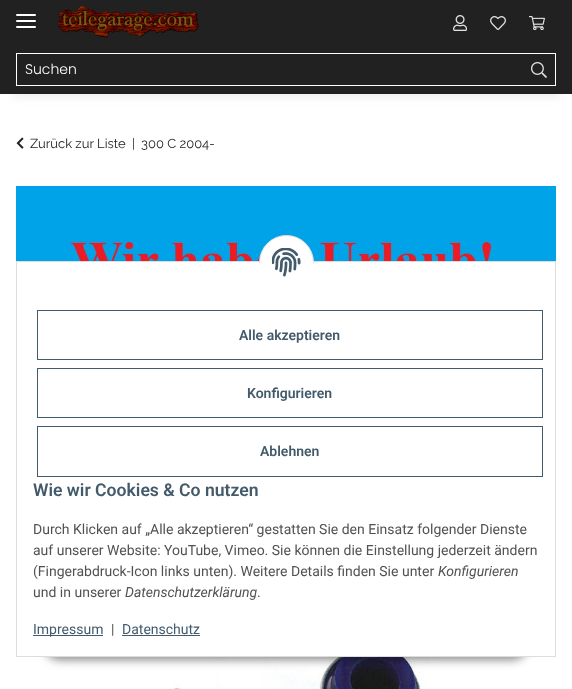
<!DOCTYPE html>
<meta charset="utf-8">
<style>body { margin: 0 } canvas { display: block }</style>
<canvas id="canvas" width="572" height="689"></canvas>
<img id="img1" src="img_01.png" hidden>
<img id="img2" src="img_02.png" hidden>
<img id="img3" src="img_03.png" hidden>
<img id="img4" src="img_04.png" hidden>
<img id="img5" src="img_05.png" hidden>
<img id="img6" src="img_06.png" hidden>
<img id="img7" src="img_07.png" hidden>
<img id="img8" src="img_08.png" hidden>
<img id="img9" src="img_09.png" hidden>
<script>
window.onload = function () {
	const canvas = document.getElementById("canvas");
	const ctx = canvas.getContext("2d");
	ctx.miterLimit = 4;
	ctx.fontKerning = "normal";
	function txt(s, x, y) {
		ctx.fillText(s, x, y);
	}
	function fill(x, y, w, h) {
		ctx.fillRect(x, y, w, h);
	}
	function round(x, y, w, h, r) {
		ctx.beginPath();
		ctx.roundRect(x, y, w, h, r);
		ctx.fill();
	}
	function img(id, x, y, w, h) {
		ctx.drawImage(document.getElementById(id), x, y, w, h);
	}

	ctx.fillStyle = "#FFFFFF";
	fill(0, 0, 572, 689);
	ctx.fillStyle = "rgba(0, 0, 0, 0.06)";
	ctx.filter = "blur(4.5px)";
	ctx.beginPath();
	ctx.rect(12, 28, 548, 70);
	ctx.fill();
	ctx.filter = "none";
	ctx.fillStyle = "#212121";
	fill(0, 0, 572, 94);
	ctx.fillStyle = "#FFFFFF";
	round(16, 20, 20, 2, 1);
	round(16, 14, 20, 2, 1);
	round(16, 26, 20, 2, 1);
	img("img1", 58, 6, 141, 32);
	img("img2", 453, 15, 14, 16);
	img("img3", 490, 16, 16, 14);
	img("img4", 529, 16, 16, 14);
	ctx.strokeStyle = "#FFFFFF";
	ctx.strokeRect(16.5, 53.5, 507, 32);
	ctx.fillStyle = "#212121";
	fill(523, 54, 1, 31);
	ctx.fillStyle = "#FFFFFF";
	fill(523, 53, 33, 1);
	fill(555, 53, 1, 33);
	fill(523, 85, 33, 1);
	img("img5", 531, 62, 16, 16);
	img("img6", 16, 137, 8, 12);
	img("img7", 16, 186, 540, 75);
	img("img8", 168, 657, 286, 32);
	ctx.fillStyle = "rgba(0, 0, 0, 0.45)";
	ctx.filter = "blur(5px)";
	ctx.beginPath();
	ctx.roundRect(44, 628, 484, 32, 16);
	ctx.fill();
	ctx.filter = "none";
	ctx.fillStyle = "#FFFFFF";
	fill(35, 618, 502, 38);
	ctx.strokeStyle = "#DDDDDD";
	ctx.strokeRect(16.5, 261.5, 539, 395);
	ctx.beginPath();
	ctx.arc(286.5, 262.5, 27, 0, Math.PI * 2);
	ctx.fill();
	ctx.stroke();
	fill(259, 263, 55, 27);
	img("img9", 272, 248, 29, 29);
	ctx.strokeStyle = "#435A6B";
	ctx.strokeRect(37.5, 310.5, 505, 49);
	ctx.strokeRect(37.5, 368.5, 505, 49);
	ctx.strokeRect(37.5, 426.5, 505, 50);
	ctx.fillStyle = "#435A6B";
	fill(33, 635, 70, 1);
	fill(122, 635, 78, 1);
	ctx.font = "300 14px Poppins";
	ctx.fillStyle = "#FFFFFF";
	txt("Suchen", 25, 74);
	ctx.font = "13px Raleway";
	ctx.fillStyle = "#212121";
	txt("Zurück zur Liste", 30, 148);
	txt("|", 132, 148);
	txt("300 C 2004-", 141, 148);
	ctx.font = "600 14px Roboto";
	ctx.fillStyle = "#435A6B";
	txt("Alle akzeptieren", 239, 340);
	txt("Konfigurieren", 247, 398);
	txt("Ablehnen", 260, 456);
	ctx.font = "600 17.6px Roboto";
	txt("Wie wir Cookies & Co nutzen", 33, 496);
	ctx.font = "14px Roboto";
	ctx.fillStyle = "#525252";
	txt("Durch Klicken auf „Alle akzeptieren“ gestatten Sie den Einsatz folgender Dienste", 33, 534);
	txt("auf unserer Website: YouTube, Vimeo. Sie können die Einstellung jederzeit ändern", 33, 555);
	txt("(Fingerabdruck-Icon links unten). Weitere Details finden Sie unter", 33, 576);
	ctx.font = "italic 14px Roboto";
	txt("Konfigurieren", 438, 576);
	ctx.font = "14px Roboto";
	txt("und in unserer", 33, 597);
	ctx.font = "italic 14px Roboto";
	txt("Datenschutzerklärung", 125, 597);
	ctx.font = "14px Roboto";
	txt(".", 257, 597);
	ctx.fillStyle = "#435A6B";
	txt("Impressum", 33, 634);
	ctx.fillStyle = "#525252";
	txt("|", 111, 634);
	ctx.fillStyle = "#435A6B";
	txt("Datenschutz", 122, 634);
};
</script>
